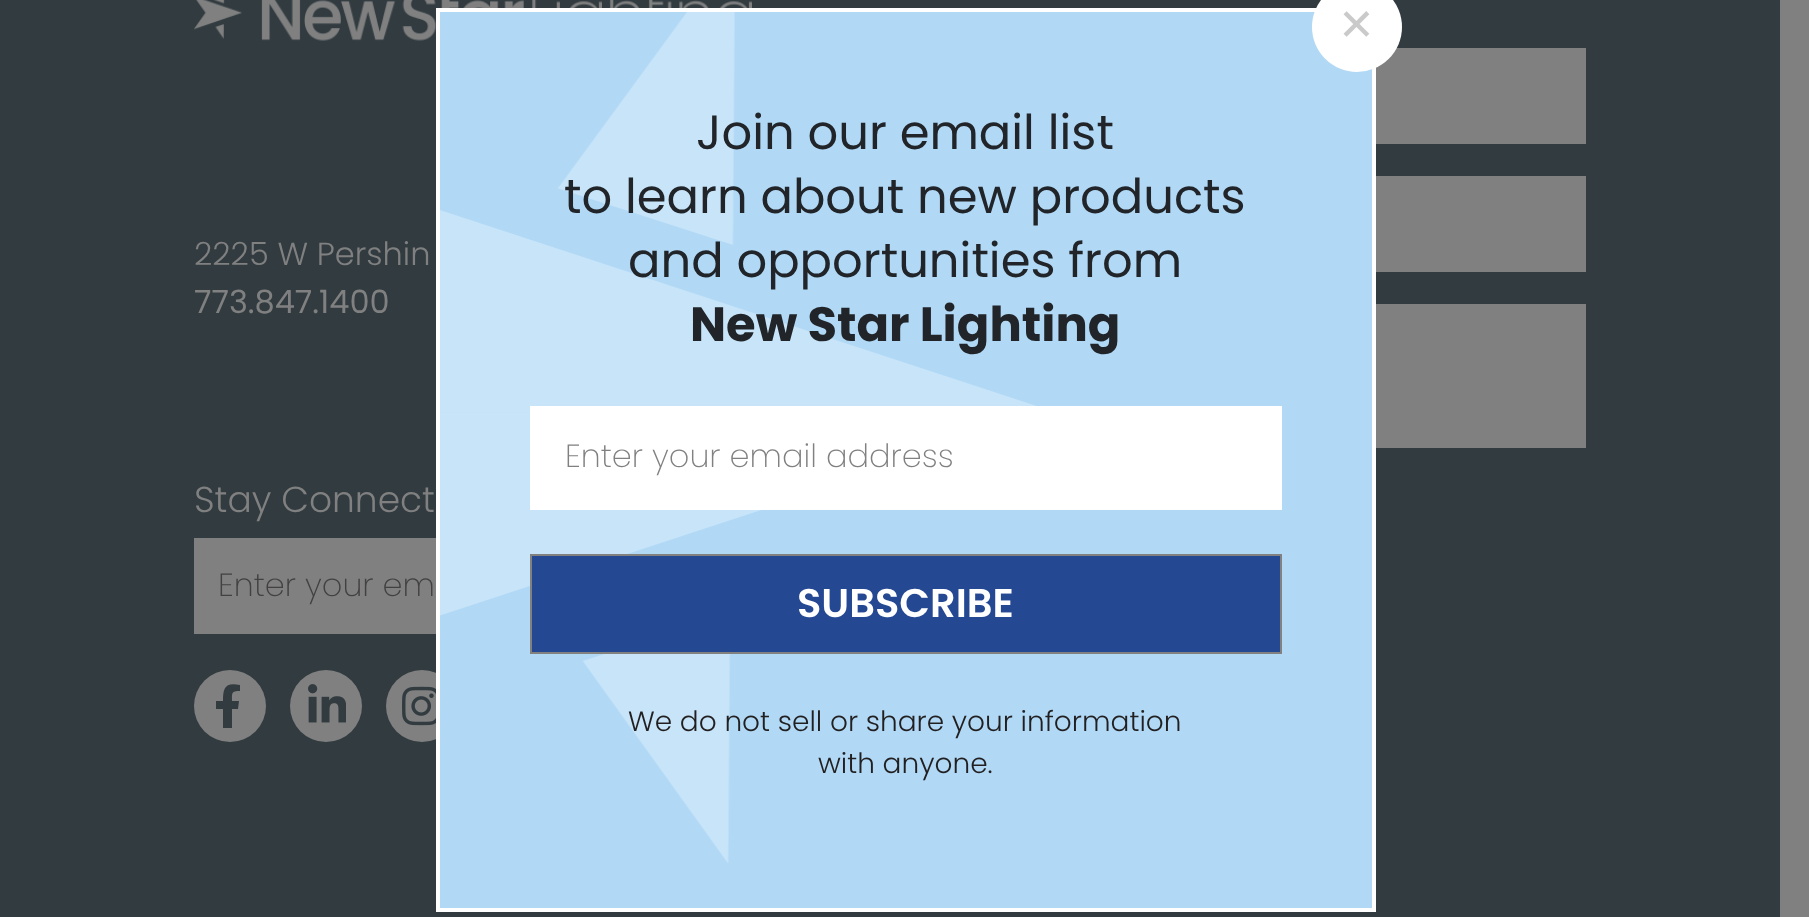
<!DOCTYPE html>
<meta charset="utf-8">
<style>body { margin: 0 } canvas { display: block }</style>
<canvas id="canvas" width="1809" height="917"></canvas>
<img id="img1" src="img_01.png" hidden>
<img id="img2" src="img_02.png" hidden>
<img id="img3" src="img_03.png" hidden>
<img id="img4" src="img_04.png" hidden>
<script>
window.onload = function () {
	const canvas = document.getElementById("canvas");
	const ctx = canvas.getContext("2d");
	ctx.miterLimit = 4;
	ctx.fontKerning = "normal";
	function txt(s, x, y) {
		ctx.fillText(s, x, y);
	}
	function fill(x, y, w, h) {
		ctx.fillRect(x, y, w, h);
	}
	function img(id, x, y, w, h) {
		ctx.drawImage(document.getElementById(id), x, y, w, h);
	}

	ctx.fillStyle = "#808080";
	fill(0, 0, 1809, 917);
	ctx.fillStyle = "#323C40";
	fill(0, 0, 1780, 917);
	img("img1", 194, 0, 558, 41);
	ctx.fillStyle = "#808080";
	fill(194, 538, 242, 96);
	ctx.beginPath();
	ctx.arc(230, 706, 36, 0, Math.PI * 2);
	ctx.fill();
	ctx.fillStyle = "#323C40";
	ctx.beginPath();
	ctx.moveTo(238, 709);
	ctx.lineTo(239, 701);
	ctx.lineTo(232, 701);
	ctx.bezierCurveTo(232, 693, 231, 691, 240, 691);
	ctx.lineTo(240, 685);
	ctx.bezierCurveTo(225, 682, 223, 688, 223, 701);
	ctx.lineTo(216, 701);
	ctx.lineTo(216, 709);
	ctx.lineTo(223, 709);
	ctx.lineTo(223, 728);
	ctx.lineTo(232, 728);
	ctx.lineTo(232, 709);
	ctx.closePath();
	ctx.fill();
	ctx.fillStyle = "#808080";
	ctx.beginPath();
	ctx.arc(326, 706, 36, 0, Math.PI * 2);
	ctx.fill();
	img("img2", 308, 684, 38, 39);
	ctx.beginPath();
	ctx.arc(422, 706, 36, 0, Math.PI * 2);
	ctx.fill();
	img("img3", 402, 686, 34, 40);
	fill(1376, 48, 210, 96);
	fill(1376, 176, 210, 96);
	fill(1376, 304, 210, 144);
	ctx.fillStyle = "#B1D9F6";
	fill(440, 12, 932, 896);
	img("img4", 440, 12, 597, 851);
	ctx.strokeStyle = "#FFFFFF";
	ctx.lineWidth = 4;
	ctx.strokeRect(438, 10, 936, 900);
	ctx.fillStyle = "#FFFFFF";
	ctx.beginPath();
	ctx.arc(1357, 27, 45, 0, Math.PI * 2);
	ctx.fill();
	fill(530, 406, 752, 104);
	ctx.fillStyle = "#244892";
	ctx.beginPath();
	ctx.rect(531, 555, 750, 98);
	ctx.fill();
	ctx.strokeStyle = "#838080";
	ctx.lineWidth = 2;
	ctx.stroke();
	ctx.font = "300 32px Poppins";
	ctx.fillStyle = "#808080";
	txt("2225 W Pershin", 194, 265);
	ctx.font = "32px Poppins";
	txt("773.847.1400", 194, 313);
	ctx.font = "300 36px Poppins";
	txt("Stay Connect", 194, 512);
	ctx.font = "200 32px Poppins";
	ctx.fillStyle = "#424040";
	txt("Enter your em", 218, 596);
	ctx.font = "44px DejaVu Sans";
	ctx.fillStyle = "#CACACA";
	txt("✕", 1338, 40);
	ctx.font = "48px Poppins";
	ctx.fillStyle = "#212529";
	txt("Join our email list", 696, 149);
	txt("to learn about new products", 564, 213);
	txt("and opportunities from", 628, 277);
	ctx.font = "bold 48px Poppins";
	txt("New Star Lighting", 690, 341);
	ctx.font = "200 32px Poppins";
	ctx.fillStyle = "#808080";
	txt("Enter your email address", 565, 467);
	ctx.font = "600 40px Poppins";
	ctx.fillStyle = "#FFFFFF";
	txt("SUBSCRIBE", 797, 617);
	ctx.font = "300 28px Poppins";
	ctx.fillStyle = "#221F20";
	txt("We do not sell or share your information", 628, 731);
	txt("with anyone.", 818, 773);
};
</script>
